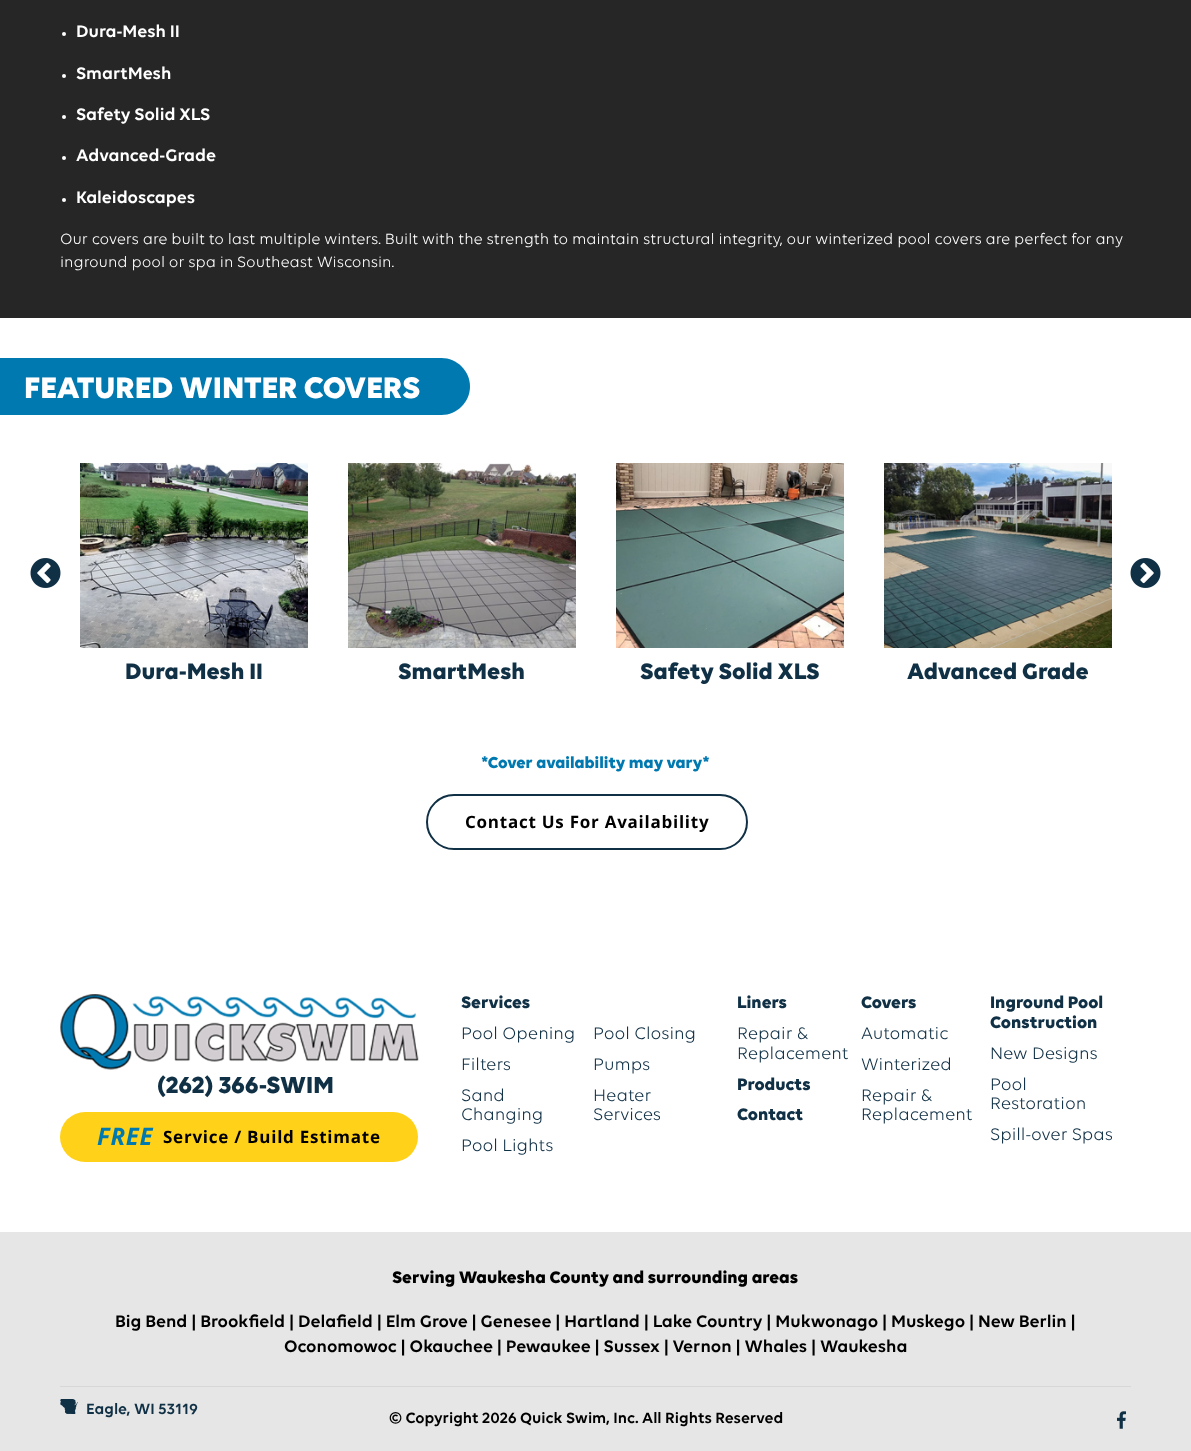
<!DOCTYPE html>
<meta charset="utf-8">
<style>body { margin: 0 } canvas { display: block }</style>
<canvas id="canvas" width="1191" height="1451"></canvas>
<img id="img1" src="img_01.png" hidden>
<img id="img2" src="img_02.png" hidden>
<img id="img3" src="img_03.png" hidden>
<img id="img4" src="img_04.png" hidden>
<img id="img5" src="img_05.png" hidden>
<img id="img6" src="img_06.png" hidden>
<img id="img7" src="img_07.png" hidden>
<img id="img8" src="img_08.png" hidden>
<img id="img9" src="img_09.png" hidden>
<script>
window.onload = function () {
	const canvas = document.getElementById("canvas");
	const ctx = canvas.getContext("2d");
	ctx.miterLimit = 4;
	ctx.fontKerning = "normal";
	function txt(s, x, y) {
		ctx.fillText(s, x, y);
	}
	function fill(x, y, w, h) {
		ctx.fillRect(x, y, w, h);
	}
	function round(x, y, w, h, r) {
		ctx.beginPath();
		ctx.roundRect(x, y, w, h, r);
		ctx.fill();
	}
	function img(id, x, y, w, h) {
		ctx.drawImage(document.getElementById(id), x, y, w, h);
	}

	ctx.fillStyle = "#FFFFFF";
	fill(0, 0, 1191, 1451);
	ctx.fillStyle = "#262626";
	fill(0, 0, 1191, 318);
	ctx.fillStyle = "#FFFFFF";
	ctx.beginPath();
	ctx.arc(64, 34, 2, 0, Math.PI * 2);
	ctx.fill();
	ctx.beginPath();
	ctx.arc(64, 76, 2, 0, Math.PI * 2);
	ctx.fill();
	ctx.beginPath();
	ctx.arc(64, 117, 2, 0, Math.PI * 2);
	ctx.fill();
	ctx.beginPath();
	ctx.arc(64, 158, 2, 0, Math.PI * 2);
	ctx.fill();
	ctx.beginPath();
	ctx.arc(64, 200, 2, 0, Math.PI * 2);
	ctx.fill();
	ctx.fillStyle = "#0079B0";
	ctx.beginPath();
	ctx.moveTo(-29, 358);
	ctx.lineTo(441.5, 358);
	ctx.bezierCurveTo(457, 358, 470, 371, 470, 386.5);
	ctx.bezierCurveTo(470, 402, 457, 415, 441.5, 415);
	ctx.lineTo(-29, 415);
	ctx.closePath();
	ctx.fill();
	img("img1", 30, 558, 31, 30);
	img("img2", 1130, 558, 31, 30);
	img("img3", 80, 463, 228, 185);
	img("img4", 348, 463, 228, 185);
	img("img5", 616, 463, 228, 185);
	img("img6", 884, 463, 228, 185);
	ctx.beginPath();
	ctx.roundRect(427, 795, 320, 54, 27);
	ctx.strokeStyle = "#103045";
	ctx.lineWidth = 2;
	ctx.stroke();
	img("img7", 60, 994, 359, 76);
	ctx.fillStyle = "#FFD119";
	round(60, 1112, 358, 50, 25);
	ctx.fillStyle = "#E6E6E6";
	fill(0, 1232, 1191, 219);
	ctx.fillStyle = "#D7D7D7";
	fill(60, 1386, 1071, 1);
	img("img8", 60, 1399, 18, 15);
	img("img9", 1117, 1411, 9, 18);
	ctx.font = "600 18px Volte";
	ctx.fillStyle = "#FFFFFF";
	txt("Dura-Mesh II", 76, 37);
	txt("SmartMesh", 76, 79);
	txt("Safety Solid XLS", 76, 120);
	txt("Advanced-Grade", 76, 161);
	txt("Kaleidoscapes", 76, 203);
	ctx.font = "16px Volte";
	txt("Our covers are built to last multiple winters. Built with the strength to maintain structural integrity, our winterized pool covers are perfect for any", 60, 244);
	txt("inground pool or spa in Southeast Wisconsin.", 60, 267);
	ctx.font = "bold 32px Volte";
	txt("FEATURED WINTER COVERS", 24, 398);
	ctx.font = "bold 24px Volte";
	ctx.fillStyle = "#103045";
	txt("Dura-Mesh II", 125, 679);
	txt("SmartMesh", 398, 679);
	txt("Safety Solid XLS", 640, 679);
	txt("Advanced Grade", 907, 679);
	ctx.font = "bold 17px Volte";
	ctx.fillStyle = "#0079B0";
	txt("*Cover availability may vary*", 481, 768);
	ctx.letterSpacing = "0.75px";
	ctx.font = "bold 17px Open Sans";
	ctx.fillStyle = "#000000";
	txt("Contact Us For Availability", 465, 828);
	ctx.letterSpacing = "0px";
	ctx.font = "bold 25px Volte";
	ctx.fillStyle = "#103045";
	txt("(262) 366-SWIM", 157, 1093);
	ctx.letterSpacing = "0.75px";
	ctx.font = "italic bold 24px Open Sans";
	ctx.fillStyle = "#0079B0";
	txt("FREE", 97, 1145);
	ctx.font = "bold 17px Open Sans";
	ctx.fillStyle = "#000000";
	txt("Service / Build Estimate", 163, 1143);
	ctx.letterSpacing = "0px";
	ctx.font = "bold 18px Volte";
	ctx.fillStyle = "#103045";
	txt("Services", 461, 1008);
	ctx.font = "18px Volte";
	txt("Pool Opening", 461, 1039);
	txt("Pool Closing", 593, 1039);
	txt("Filters", 461, 1070);
	txt("Pumps", 593, 1070);
	txt("Sand", 461, 1101);
	txt("Changing", 461, 1120);
	txt("Heater", 593, 1101);
	txt("Services", 593, 1120);
	txt("Pool Lights", 461, 1151);
	ctx.font = "bold 18px Volte";
	txt("Liners", 737, 1008);
	ctx.font = "18px Volte";
	txt("Repair &", 737, 1039);
	txt("Replacement", 737, 1059);
	ctx.font = "bold 18px Volte";
	txt("Products", 737, 1090);
	txt("Contact", 737, 1120);
	txt("Covers", 861, 1008);
	ctx.font = "18px Volte";
	txt("Automatic", 861, 1039);
	txt("Winterized", 861, 1070);
	txt("Repair &", 861, 1101);
	txt("Replacement", 861, 1120);
	ctx.font = "bold 18px Volte";
	txt("Inground Pool", 990, 1008);
	txt("Construction", 990, 1028);
	ctx.font = "18px Volte";
	txt("New Designs", 990, 1059);
	txt("Pool", 990, 1090);
	txt("Restoration", 990, 1109);
	txt("Spill-over Spas", 990, 1140);
	ctx.font = "bold 18px Volte";
	ctx.fillStyle = "#000000";
	txt("Serving Waukesha County and surrounding areas", 392, 1283);
	ctx.font = "600 18px Volte";
	txt("Big Bend | Brookfield | Delafield | Elm Grove | Genesee | Hartland | Lake Country | Mukwonago | Muskego | New Berlin |", 115, 1327);
	txt("Oconomowoc | Okauchee | Pewaukee | Sussex | Vernon | Whales | Waukesha", 284, 1352);
	ctx.font = "600 16px Volte";
	ctx.fillStyle = "#103045";
	txt("Eagle, WI 53119", 86, 1414);
	ctx.fillStyle = "#000000";
	txt("© Copyright 2026 Quick Swim, Inc. All Rights Reserved", 389, 1423);
};
</script>
